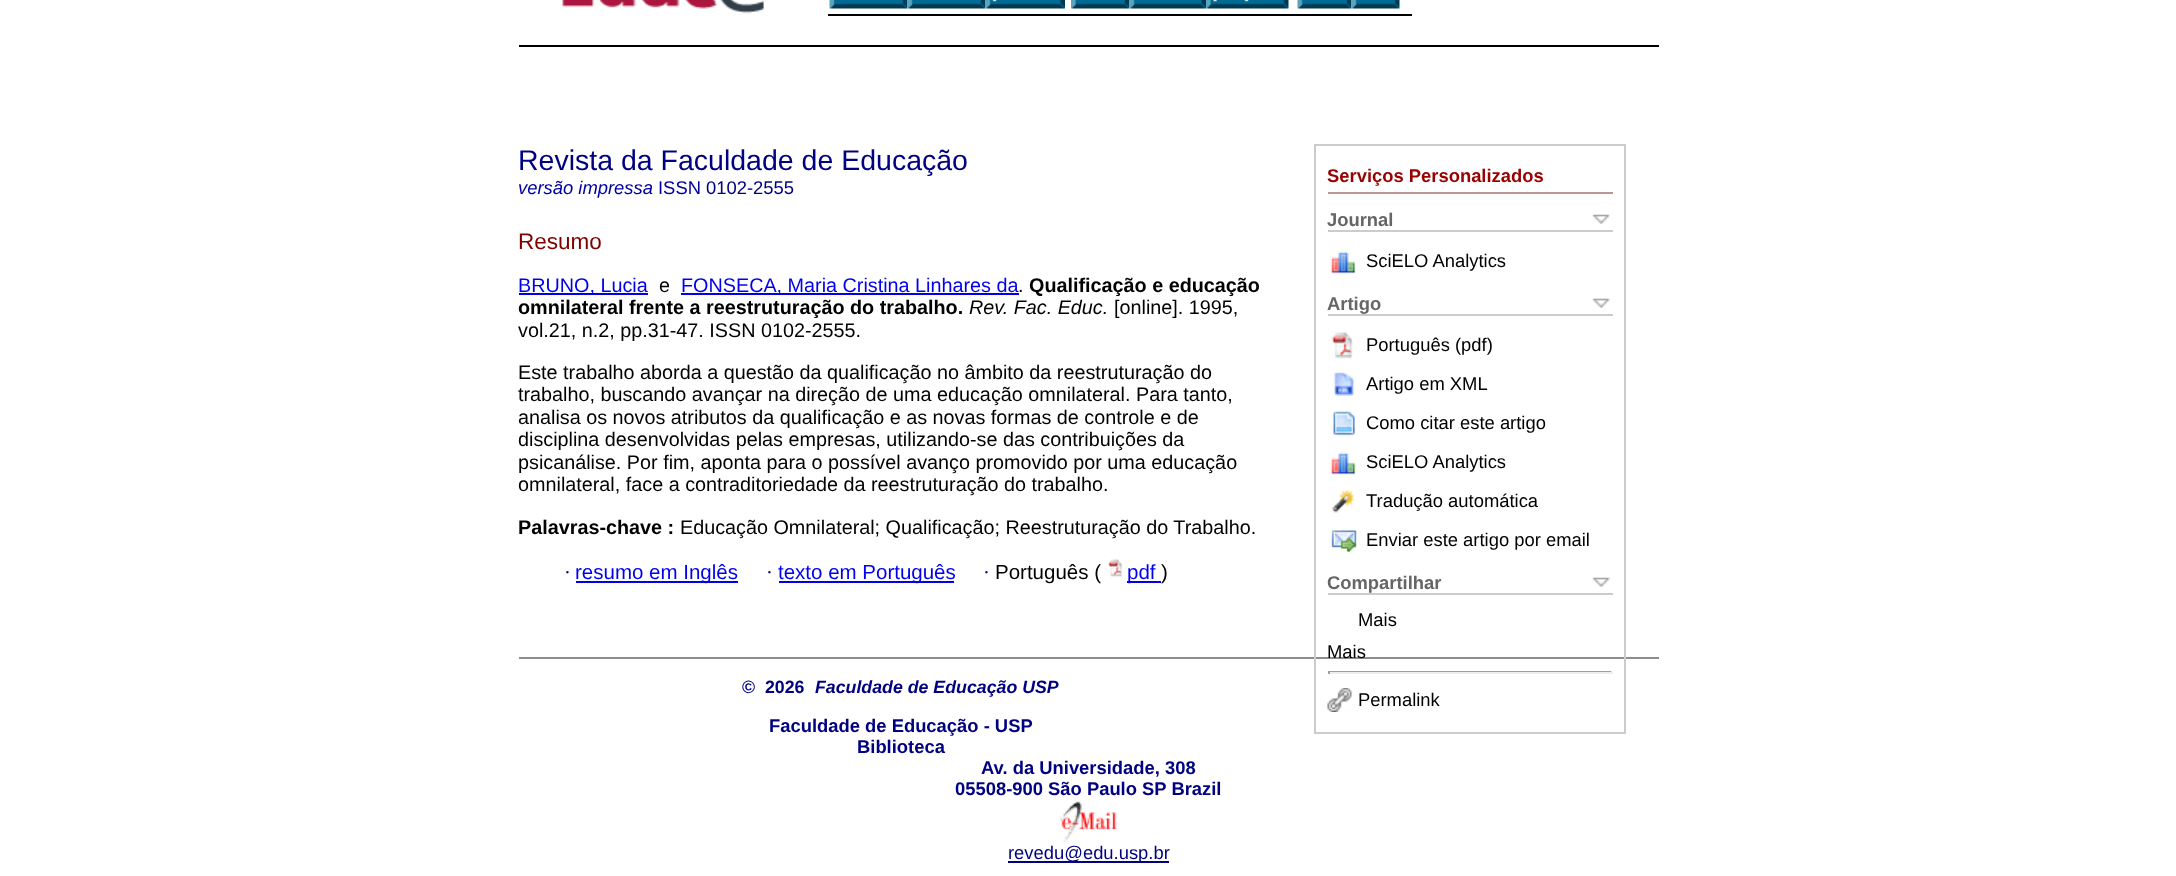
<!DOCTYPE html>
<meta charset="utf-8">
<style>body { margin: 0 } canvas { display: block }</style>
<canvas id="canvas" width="2176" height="876"></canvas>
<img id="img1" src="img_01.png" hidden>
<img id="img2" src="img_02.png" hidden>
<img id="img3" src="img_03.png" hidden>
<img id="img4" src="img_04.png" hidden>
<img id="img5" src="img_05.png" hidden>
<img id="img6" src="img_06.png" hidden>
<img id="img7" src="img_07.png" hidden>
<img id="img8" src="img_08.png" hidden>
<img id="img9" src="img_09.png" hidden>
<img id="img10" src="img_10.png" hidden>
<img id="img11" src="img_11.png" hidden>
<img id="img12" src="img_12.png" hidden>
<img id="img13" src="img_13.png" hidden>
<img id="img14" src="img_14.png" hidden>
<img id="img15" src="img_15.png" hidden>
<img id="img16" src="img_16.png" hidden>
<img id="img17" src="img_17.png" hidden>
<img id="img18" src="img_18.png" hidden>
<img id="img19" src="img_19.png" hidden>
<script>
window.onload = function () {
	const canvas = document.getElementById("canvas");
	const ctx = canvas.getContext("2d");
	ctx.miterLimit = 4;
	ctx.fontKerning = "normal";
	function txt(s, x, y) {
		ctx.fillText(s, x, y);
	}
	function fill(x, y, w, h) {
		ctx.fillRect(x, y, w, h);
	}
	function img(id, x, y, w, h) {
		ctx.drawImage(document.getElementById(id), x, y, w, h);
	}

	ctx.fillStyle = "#FFFFFF";
	fill(0, 0, 2176, 876);
	ctx.fillStyle = "#000000";
	fill(519, 45, 1140, 2);
	img("img1", 562, 0, 202, 14);
	fill(828, 14, 584, 2);
	img("img2", 829, 0, 79, 9);
	img("img3", 907, 0, 79, 9);
	img("img4", 985, 0, 80, 9);
	img("img5", 1071, 0, 59, 9);
	img("img6", 1129, 0, 77, 9);
	img("img7", 1206, 0, 83, 9);
	img("img8", 1297, 0, 55, 9);
	img("img9", 1351, 0, 49, 9);
	ctx.fillStyle = "#8D8D8D";
	fill(519, 657, 1140, 2);
	ctx.strokeStyle = "#CCCCCC";
	ctx.lineWidth = 2;
	ctx.strokeRect(1315, 145, 310, 588);
	ctx.fillStyle = "#BE9595";
	fill(1328, 192, 285, 2);
	img("img10", 1592, 214, 18, 10);
	ctx.fillStyle = "#CCCCCC";
	fill(1328, 230, 285, 2);
	img("img11", 1330, 251, 26, 23);
	img("img10", 1592, 298, 18, 10);
	fill(1328, 314, 285, 2);
	img("img12", 1331, 332, 22, 27);
	img("img13", 1333, 372, 22, 25);
	img("img14", 1333, 410, 23, 26);
	img("img11", 1330, 452, 26, 23);
	img("img15", 1331, 489, 24, 24);
	img("img16", 1328, 529, 31, 23);
	img("img10", 1592, 577, 18, 10);
	fill(1328, 593, 285, 2);
	ctx.fillStyle = "#9F9F9F";
	fill(1328, 671, 285, 1);
	ctx.fillStyle = "#EEEEEE";
	fill(1611, 671, 2, 3);
	fill(1328, 672, 285, 2);
	ctx.fillStyle = "#9F9F9F";
	fill(1328, 671, 2, 3);
	img("img17", 1327, 688, 25, 24);
	ctx.fillStyle = "#0000EE";
	fill(519, 293, 129, 2);
	fill(681, 293, 338, 2);
	fill(576, 581, 162, 2);
	fill(779, 581, 175, 2);
	img("img18", 1108, 559, 15, 18);
	fill(1127, 581, 34, 2);
	img("img19", 1060, 801, 58, 42);
	ctx.fillStyle = "#000080";
	fill(1008, 861, 161, 2);
	ctx.font = "28.5px Liberation Sans";
	txt("Revista da Faculdade de Educação", 518, 170);
	ctx.font = "italic 18.4px Liberation Sans";
	ctx.fillStyle = "#0000A0";
	txt("versão impressa", 518, 194);
	ctx.font = "18.4px Liberation Sans";
	txt("ISSN", 658, 194);
	ctx.fillStyle = "#000080";
	txt("0102-2555", 706, 194);
	ctx.font = "bold 18.4px Liberation Sans";
	ctx.fillStyle = "#990000";
	txt("Serviços Personalizados", 1327, 182);
	ctx.fillStyle = "#666666";
	txt("Journal", 1327, 226);
	ctx.font = "18.4px Liberation Sans";
	ctx.fillStyle = "#000000";
	txt("SciELO Analytics", 1366, 267);
	ctx.font = "bold 18.4px Liberation Sans";
	ctx.fillStyle = "#666666";
	txt("Artigo", 1327, 310);
	ctx.font = "18.4px Liberation Sans";
	ctx.fillStyle = "#000000";
	txt("Português (pdf)", 1366, 351);
	txt("Artigo em XML", 1366, 390);
	txt("Como citar este artigo", 1366, 429);
	txt("SciELO Analytics", 1366, 468);
	txt("Tradução automática", 1366, 507);
	txt("Enviar este artigo por email", 1366, 546);
	ctx.font = "bold 18.4px Liberation Sans";
	ctx.fillStyle = "#666666";
	txt("Compartilhar", 1327, 589);
	ctx.font = "18.4px Liberation Sans";
	ctx.fillStyle = "#000000";
	txt("Mais", 1358, 626);
	txt("Mais", 1327, 658);
	txt("Permalink", 1358, 706);
	ctx.font = "22.5px Liberation Sans";
	ctx.fillStyle = "#800000";
	txt("Resumo", 518, 249);
	ctx.font = "19.8px Liberation Sans";
	ctx.fillStyle = "#0000EE";
	txt("BRUNO, Lucia", 518, 292);
	ctx.fillStyle = "#000000";
	txt("e", 659, 292);
	ctx.fillStyle = "#0000EE";
	txt("FONSECA, Maria Cristina Linhares da", 681, 292);
	ctx.fillStyle = "#000000";
	txt(".", 1018, 292);
	ctx.font = "bold 19.8px Liberation Sans";
	txt("Qualificação e educação", 1029, 292);
	txt("omnilateral frente a reestruturação do trabalho.", 518, 314);
	ctx.font = "italic 19.8px Liberation Sans";
	txt("Rev. Fac. Educ.", 969, 314);
	ctx.font = "19.8px Liberation Sans";
	txt("[online]. 1995,", 1114, 314);
	txt("vol.21, n.2, pp.31-47. ISSN 0102-2555.", 518, 337);
	txt("Este trabalho aborda a questão da qualificação no âmbito da reestruturação do", 518, 379);
	txt("trabalho, buscando avançar na direção de uma educação omnilateral. Para tanto,", 518, 401);
	txt("analisa os novos atributos da qualificação e as novas formas de controle e de", 518, 424);
	txt("disciplina desenvolvidas pelas empresas, utilizando-se das contribuições da", 518, 446);
	txt("psicanálise. Por fim, aponta para o possível avanço promovido por uma educação", 518, 469);
	txt("omnilateral, face a contraditoriedade da reestruturação do trabalho.", 518, 491);
	ctx.font = "bold 19.8px Liberation Sans";
	txt("Palavras-chave :", 518, 534);
	ctx.font = "19.8px Liberation Sans";
	txt("Educação Omnilateral; Qualificação; Reestruturação do Trabalho.", 680, 534);
	ctx.font = "20.5px Liberation Serif";
	ctx.fillStyle = "#000080";
	txt("·", 564, 579);
	ctx.font = "20.5px Liberation Sans";
	ctx.fillStyle = "#0000EE";
	txt("resumo em Inglês", 575, 579);
	ctx.font = "20.5px Liberation Serif";
	ctx.fillStyle = "#000080";
	txt("·", 766, 579);
	ctx.font = "20.5px Liberation Sans";
	ctx.fillStyle = "#0000EE";
	txt("texto em Português", 778, 579);
	ctx.font = "20.5px Liberation Serif";
	ctx.fillStyle = "#000080";
	txt("·", 983, 579);
	ctx.font = "20.5px Liberation Sans";
	ctx.fillStyle = "#000000";
	txt("Português (", 995, 579);
	ctx.fillStyle = "#0000EE";
	txt("pdf", 1127, 579);
	ctx.fillStyle = "#000000";
	txt(")", 1161, 579);
	ctx.font = "bold 17.75px Liberation Sans";
	ctx.fillStyle = "#000080";
	txt("©  2026", 742, 693);
	ctx.font = "italic bold 17.75px Liberation Sans";
	txt("Faculdade de Educação USP", 815, 693);
	ctx.font = "bold 18.4px Liberation Sans";
	txt("Faculdade de Educação - USP", 769, 732);
	txt("Biblioteca", 857, 753);
	txt("Av. da Universidade, 308", 981, 774);
	txt("05508-900 São Paulo SP Brazil", 955, 795);
	ctx.font = "18.4px Liberation Sans";
	txt("revedu@edu.usp.br", 1008, 859);
};
</script>
